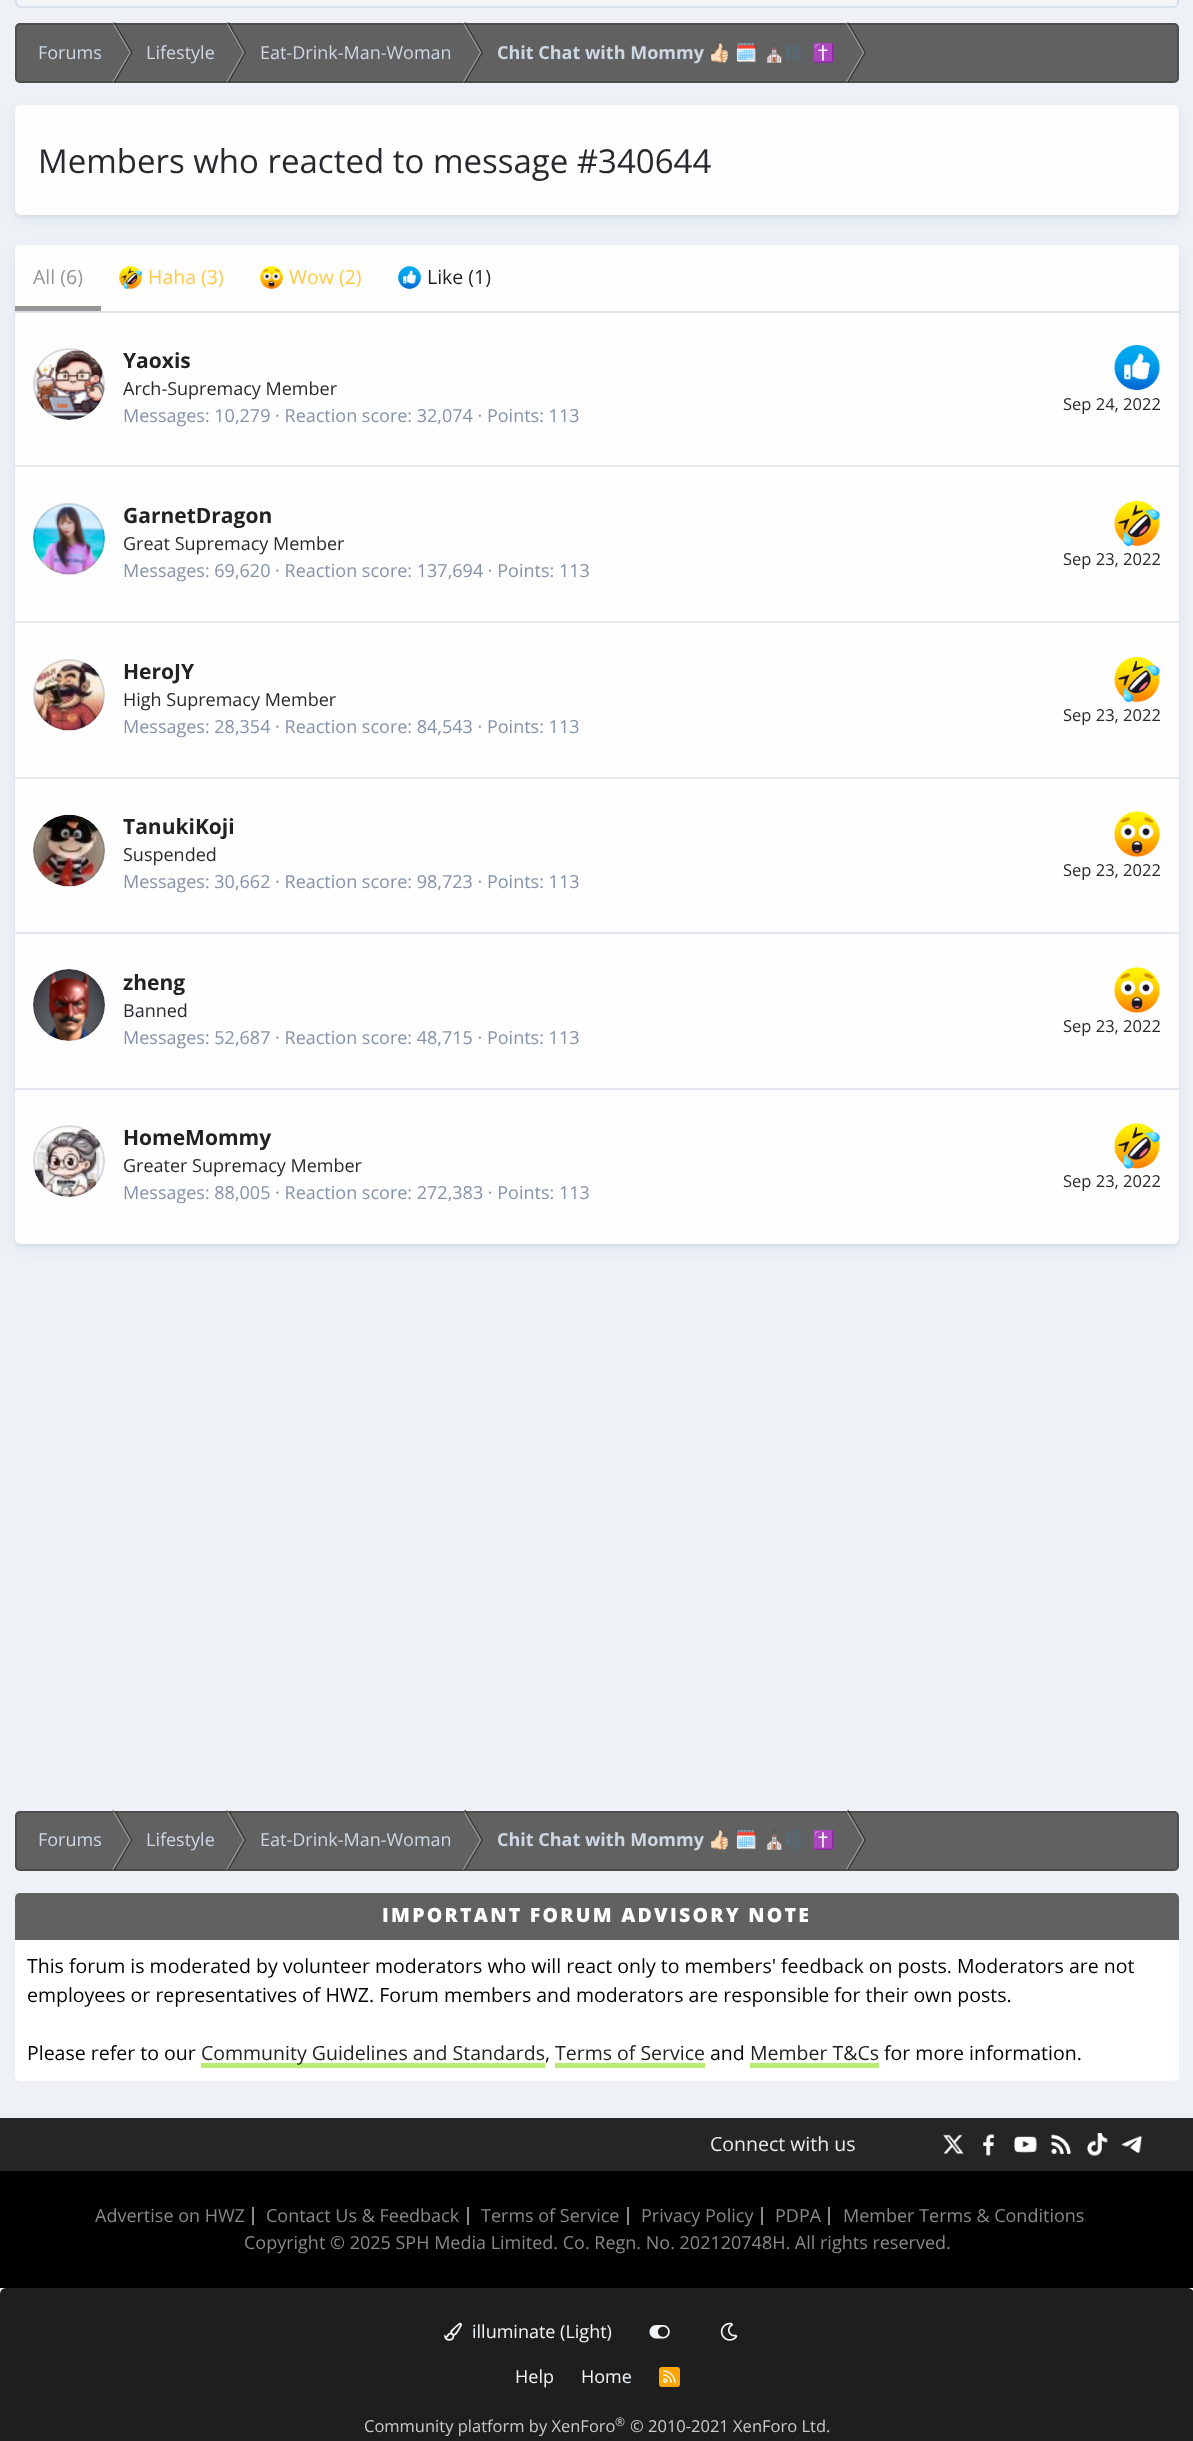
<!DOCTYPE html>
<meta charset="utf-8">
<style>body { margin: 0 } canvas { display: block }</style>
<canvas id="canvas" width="1193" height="2441"></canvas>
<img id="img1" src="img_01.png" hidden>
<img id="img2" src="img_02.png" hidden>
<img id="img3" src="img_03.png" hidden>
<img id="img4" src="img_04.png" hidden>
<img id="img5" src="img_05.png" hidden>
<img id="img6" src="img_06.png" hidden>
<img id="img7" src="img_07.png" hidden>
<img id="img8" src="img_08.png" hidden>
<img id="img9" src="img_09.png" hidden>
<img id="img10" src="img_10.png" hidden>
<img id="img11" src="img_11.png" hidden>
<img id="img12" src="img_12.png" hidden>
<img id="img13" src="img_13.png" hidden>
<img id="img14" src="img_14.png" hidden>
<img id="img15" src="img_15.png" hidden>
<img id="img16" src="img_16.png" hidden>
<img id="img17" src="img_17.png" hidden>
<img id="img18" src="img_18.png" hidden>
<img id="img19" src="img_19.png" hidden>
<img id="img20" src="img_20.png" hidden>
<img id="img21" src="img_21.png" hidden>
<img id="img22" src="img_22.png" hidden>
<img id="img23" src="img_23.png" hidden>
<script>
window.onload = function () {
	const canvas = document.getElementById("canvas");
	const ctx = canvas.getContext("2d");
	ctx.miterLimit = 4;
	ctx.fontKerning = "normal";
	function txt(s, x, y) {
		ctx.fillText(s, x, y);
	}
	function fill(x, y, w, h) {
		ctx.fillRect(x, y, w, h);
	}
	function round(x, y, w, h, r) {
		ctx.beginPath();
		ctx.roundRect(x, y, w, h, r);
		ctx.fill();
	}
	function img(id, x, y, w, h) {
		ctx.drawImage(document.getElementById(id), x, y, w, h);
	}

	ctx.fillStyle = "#EEF2F6";
	fill(0, 0, 1193, 2441);
	ctx.fillStyle = "#F2F5F8";
	ctx.beginPath();
	ctx.roundRect(16, -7, 1162, 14, 5);
	ctx.fill();
	ctx.strokeStyle = "#D6E0EA";
	ctx.lineWidth = 2;
	ctx.stroke();
	ctx.fillStyle = "#616161";
	round(15, 23, 1164, 60, 5);
	ctx.fillStyle = "#9D9D9D";
	ctx.beginPath();
	ctx.moveTo(112, 22.5);
	ctx.lineTo(113.5, 22.5);
	ctx.lineTo(131, 52.5);
	ctx.lineTo(129.5, 52.5);
	ctx.closePath();
	ctx.fill();
	ctx.fillStyle = "rgba(46, 46, 46, 0.8)";
	ctx.beginPath();
	ctx.moveTo(113.5, 22.5);
	ctx.lineTo(115, 22.5);
	ctx.lineTo(132.5, 52.5);
	ctx.lineTo(131, 52.5);
	ctx.closePath();
	ctx.fill();
	ctx.fillStyle = "#9D9D9D";
	ctx.beginPath();
	ctx.moveTo(129.5, 52.5);
	ctx.lineTo(131, 52.5);
	ctx.lineTo(113.5, 82.5);
	ctx.lineTo(112, 82.5);
	ctx.closePath();
	ctx.fill();
	ctx.fillStyle = "rgba(46, 46, 46, 0.8)";
	ctx.beginPath();
	ctx.moveTo(131, 52.5);
	ctx.lineTo(132.5, 52.5);
	ctx.lineTo(115, 82.5);
	ctx.lineTo(113.5, 82.5);
	ctx.closePath();
	ctx.fill();
	ctx.fillStyle = "#9D9D9D";
	ctx.beginPath();
	ctx.moveTo(226, 22.5);
	ctx.lineTo(227.5, 22.5);
	ctx.lineTo(244.5, 52.5);
	ctx.lineTo(243, 52.5);
	ctx.closePath();
	ctx.fill();
	ctx.fillStyle = "rgba(46, 46, 46, 0.8)";
	ctx.beginPath();
	ctx.moveTo(227.5, 22.5);
	ctx.lineTo(229, 22.5);
	ctx.lineTo(246, 52.5);
	ctx.lineTo(244.5, 52.5);
	ctx.closePath();
	ctx.fill();
	ctx.fillStyle = "#9D9D9D";
	ctx.beginPath();
	ctx.moveTo(243, 52.5);
	ctx.lineTo(244.5, 52.5);
	ctx.lineTo(227.5, 82.5);
	ctx.lineTo(226, 82.5);
	ctx.closePath();
	ctx.fill();
	ctx.fillStyle = "rgba(46, 46, 46, 0.8)";
	ctx.beginPath();
	ctx.moveTo(244.5, 52.5);
	ctx.lineTo(246, 52.5);
	ctx.lineTo(229, 82.5);
	ctx.lineTo(227.5, 82.5);
	ctx.closePath();
	ctx.fill();
	ctx.save();
	ctx.beginPath();
	ctx.rect(15, 23, 1164, 60);
	ctx.clip();
	ctx.fillStyle = "#9D9D9D";
	ctx.beginPath();
	ctx.moveTo(462.5, 22.5);
	ctx.lineTo(464, 22.5);
	ctx.lineTo(481.5, 52.5);
	ctx.lineTo(480, 52.5);
	ctx.closePath();
	ctx.fill();
	ctx.restore();
	ctx.beginPath();
	ctx.moveTo(464, 22.5);
	ctx.lineTo(465.5, 22.5);
	ctx.lineTo(483, 52.5);
	ctx.lineTo(481.5, 52.5);
	ctx.closePath();
	ctx.fill();
	ctx.fillStyle = "#9D9D9D";
	ctx.beginPath();
	ctx.moveTo(480, 52.5);
	ctx.lineTo(481.5, 52.5);
	ctx.lineTo(464, 82.5);
	ctx.lineTo(462.5, 82.5);
	ctx.closePath();
	ctx.fill();
	ctx.fillStyle = "rgba(46, 46, 46, 0.8)";
	ctx.beginPath();
	ctx.moveTo(481.5, 52.5);
	ctx.lineTo(483, 52.5);
	ctx.lineTo(465.5, 82.5);
	ctx.lineTo(464, 82.5);
	ctx.closePath();
	ctx.fill();
	ctx.save();
	ctx.beginPath();
	ctx.rect(15, 23, 1164, 60);
	ctx.clip();
	ctx.fillStyle = "#9D9D9D";
	ctx.beginPath();
	ctx.moveTo(845.5, 22.5);
	ctx.lineTo(847, 22.5);
	ctx.lineTo(864.5, 52.5);
	ctx.lineTo(863, 52.5);
	ctx.closePath();
	ctx.fill();
	ctx.restore();
	ctx.beginPath();
	ctx.moveTo(847, 22.5);
	ctx.lineTo(848.5, 22.5);
	ctx.lineTo(866, 52.5);
	ctx.lineTo(864.5, 52.5);
	ctx.closePath();
	ctx.fill();
	ctx.fillStyle = "#9D9D9D";
	ctx.beginPath();
	ctx.moveTo(863, 52.5);
	ctx.lineTo(864.5, 52.5);
	ctx.lineTo(847, 82.5);
	ctx.lineTo(845.5, 82.5);
	ctx.closePath();
	ctx.fill();
	ctx.fillStyle = "rgba(46, 46, 46, 0.8)";
	ctx.beginPath();
	ctx.moveTo(864.5, 52.5);
	ctx.lineTo(866, 52.5);
	ctx.lineTo(848.5, 82.5);
	ctx.lineTo(847, 82.5);
	ctx.closePath();
	ctx.fill();
	ctx.beginPath();
	ctx.roundRect(16, 24, 1162, 58, 4);
	ctx.strokeStyle = "rgba(21, 21, 21, 0.25)";
	ctx.stroke();
	ctx.fillStyle = "rgba(120, 151, 186, 0.12)";
	ctx.filter = "blur(7.5px)";
	ctx.beginPath();
	ctx.roundRect(15, 111, 1164, 110, 6);
	ctx.fill();
	ctx.filter = "none";
	ctx.filter = "blur(1.5px)";
	ctx.beginPath();
	ctx.roundRect(15, 108, 1164, 110, 6);
	ctx.fill();
	ctx.filter = "none";
	ctx.fillStyle = "#FEFEFE";
	round(15, 105, 1164, 110, 6);
	ctx.fillStyle = "rgba(120, 151, 186, 0.12)";
	ctx.filter = "blur(7.5px)";
	ctx.beginPath();
	ctx.roundRect(15, 251, 1164, 999, 6);
	ctx.fill();
	ctx.filter = "none";
	ctx.filter = "blur(1.5px)";
	ctx.beginPath();
	ctx.roundRect(15, 248, 1164, 999, 6);
	ctx.fill();
	ctx.filter = "none";
	ctx.fillStyle = "#FEFEFE";
	round(15, 245, 1164, 999, 6);
	ctx.beginPath();
	ctx.roundRect(15, 245, 1164, 67, [5, 5, 0, 0]);
	ctx.fill();
	ctx.fillStyle = "#D6E0EA";
	fill(15, 311, 1164, 2);
	ctx.fillStyle = "#959596";
	fill(15, 306, 86, 5);
	img("img1", 119, 266, 23, 23);
	img("img2", 260, 266, 23, 23);
	img("img3", 398, 266, 23, 23);
	img("img4", 33, 349, 72, 71);
	ctx.beginPath();
	ctx.arc(69, 384, 35, 0, Math.PI * 2);
	ctx.strokeStyle = "rgba(40, 41, 46, 0.15)";
	ctx.stroke();
	img("img5", 1114, 345, 46, 45);
	ctx.fillStyle = "#E1E8EF";
	fill(15, 465, 1164, 2);
	img("img6", 33, 503, 72, 72);
	ctx.beginPath();
	ctx.arc(69, 539, 35, 0, Math.PI * 2);
	ctx.stroke();
	img("img7", 1114, 501, 46, 45);
	fill(15, 621, 1164, 2);
	img("img8", 33, 659, 72, 72);
	ctx.beginPath();
	ctx.arc(69, 695, 35, 0, Math.PI * 2);
	ctx.stroke();
	img("img7", 1114, 657, 46, 45);
	fill(15, 777, 1164, 2);
	img("img9", 33, 814, 72, 73);
	ctx.beginPath();
	ctx.arc(69, 851, 35, 0, Math.PI * 2);
	ctx.stroke();
	img("img10", 1114, 811, 46, 46);
	fill(15, 932, 1164, 2);
	img("img11", 33, 969, 72, 72);
	ctx.beginPath();
	ctx.arc(69, 1005, 35, 0, Math.PI * 2);
	ctx.stroke();
	img("img10", 1114, 967, 46, 46);
	fill(15, 1088, 1164, 2);
	img("img12", 34, 1125, 71, 72);
	ctx.beginPath();
	ctx.arc(69, 1161, 35, 0, Math.PI * 2);
	ctx.stroke();
	img("img13", 1114, 1123, 46, 46);
	ctx.fillStyle = "#616161";
	round(15, 1811, 1164, 60, 5);
	ctx.fillStyle = "#9D9D9D";
	ctx.beginPath();
	ctx.moveTo(112, 1810);
	ctx.lineTo(113.5, 1810);
	ctx.lineTo(131, 1840);
	ctx.lineTo(129.5, 1840);
	ctx.closePath();
	ctx.fill();
	ctx.save();
	ctx.beginPath();
	ctx.rect(15, 1811, 1164, 60);
	ctx.clip();
	ctx.fillStyle = "rgba(46, 46, 46, 0.8)";
	ctx.beginPath();
	ctx.moveTo(113.5, 1810);
	ctx.lineTo(115, 1810);
	ctx.lineTo(132.5, 1840);
	ctx.lineTo(131, 1840);
	ctx.closePath();
	ctx.fill();
	ctx.restore();
	ctx.beginPath();
	ctx.moveTo(129.5, 1840);
	ctx.lineTo(131, 1840);
	ctx.lineTo(113.5, 1870);
	ctx.lineTo(112, 1870);
	ctx.closePath();
	ctx.fill();
	ctx.fillStyle = "rgba(46, 46, 46, 0.8)";
	ctx.beginPath();
	ctx.moveTo(131, 1840);
	ctx.lineTo(132.5, 1840);
	ctx.lineTo(115, 1870);
	ctx.lineTo(113.5, 1870);
	ctx.closePath();
	ctx.fill();
	ctx.fillStyle = "#9D9D9D";
	ctx.beginPath();
	ctx.moveTo(226, 1810);
	ctx.lineTo(227.5, 1810);
	ctx.lineTo(244.5, 1840);
	ctx.lineTo(243, 1840);
	ctx.closePath();
	ctx.fill();
	ctx.save();
	ctx.beginPath();
	ctx.rect(15, 1811, 1164, 60);
	ctx.clip();
	ctx.fillStyle = "rgba(46, 46, 46, 0.8)";
	ctx.beginPath();
	ctx.moveTo(227.5, 1810);
	ctx.lineTo(229, 1810);
	ctx.lineTo(246, 1840);
	ctx.lineTo(244.5, 1840);
	ctx.closePath();
	ctx.fill();
	ctx.restore();
	ctx.beginPath();
	ctx.moveTo(243, 1840);
	ctx.lineTo(244.5, 1840);
	ctx.lineTo(227.5, 1870);
	ctx.lineTo(226, 1870);
	ctx.closePath();
	ctx.fill();
	ctx.fillStyle = "rgba(46, 46, 46, 0.8)";
	ctx.beginPath();
	ctx.moveTo(244.5, 1840);
	ctx.lineTo(246, 1840);
	ctx.lineTo(229, 1870);
	ctx.lineTo(227.5, 1870);
	ctx.closePath();
	ctx.fill();
	ctx.save();
	ctx.beginPath();
	ctx.rect(15, 1811, 1164, 60);
	ctx.clip();
	ctx.fillStyle = "#9D9D9D";
	ctx.beginPath();
	ctx.moveTo(462.5, 1810);
	ctx.lineTo(464, 1810);
	ctx.lineTo(481.5, 1840);
	ctx.lineTo(480, 1840);
	ctx.closePath();
	ctx.fill();
	ctx.restore();
	ctx.beginPath();
	ctx.moveTo(464, 1810);
	ctx.lineTo(465.5, 1810);
	ctx.lineTo(483, 1840);
	ctx.lineTo(481.5, 1840);
	ctx.closePath();
	ctx.fill();
	ctx.fillStyle = "#9D9D9D";
	ctx.beginPath();
	ctx.moveTo(480, 1840);
	ctx.lineTo(481.5, 1840);
	ctx.lineTo(464, 1870);
	ctx.lineTo(462.5, 1870);
	ctx.closePath();
	ctx.fill();
	ctx.fillStyle = "rgba(46, 46, 46, 0.8)";
	ctx.beginPath();
	ctx.moveTo(481.5, 1840);
	ctx.lineTo(483, 1840);
	ctx.lineTo(465.5, 1870);
	ctx.lineTo(464, 1870);
	ctx.closePath();
	ctx.fill();
	ctx.save();
	ctx.beginPath();
	ctx.rect(15, 1811, 1164, 60);
	ctx.clip();
	ctx.fillStyle = "#9D9D9D";
	ctx.beginPath();
	ctx.moveTo(845.5, 1810);
	ctx.lineTo(847, 1810);
	ctx.lineTo(864.5, 1840);
	ctx.lineTo(863, 1840);
	ctx.closePath();
	ctx.fill();
	ctx.restore();
	ctx.beginPath();
	ctx.moveTo(847, 1810);
	ctx.lineTo(848.5, 1810);
	ctx.lineTo(866, 1840);
	ctx.lineTo(864.5, 1840);
	ctx.closePath();
	ctx.fill();
	ctx.fillStyle = "#9D9D9D";
	ctx.beginPath();
	ctx.moveTo(863, 1840);
	ctx.lineTo(864.5, 1840);
	ctx.lineTo(847, 1870);
	ctx.lineTo(845.5, 1870);
	ctx.closePath();
	ctx.fill();
	ctx.fillStyle = "rgba(46, 46, 46, 0.8)";
	ctx.beginPath();
	ctx.moveTo(864.5, 1840);
	ctx.lineTo(866, 1840);
	ctx.lineTo(848.5, 1870);
	ctx.lineTo(847, 1870);
	ctx.closePath();
	ctx.fill();
	ctx.beginPath();
	ctx.roundRect(16, 1812, 1162, 58, 4);
	ctx.strokeStyle = "rgba(21, 21, 21, 0.25)";
	ctx.stroke();
	ctx.fillStyle = "#616161";
	ctx.beginPath();
	ctx.roundRect(15, 1893, 1164, 47, [5, 5, 0, 0]);
	ctx.fill();
	ctx.fillStyle = "#FFFFFF";
	ctx.beginPath();
	ctx.roundRect(15, 1940, 1164, 141, [0, 0, 5, 5]);
	ctx.fill();
	ctx.fillStyle = "#BAEB73";
	fill(201, 2063, 344, 5);
	fill(555, 2063, 150, 5);
	fill(750, 2063, 129, 5);
	ctx.fillStyle = "#000000";
	fill(0, 2171, 1193, 117);
	ctx.fillStyle = "#252525";
	fill(0, 2118, 1193, 53);
	img("img14", 943, 2134, 21, 20);
	img("img15", 983, 2134, 12, 22);
	img("img16", 1014, 2136, 23, 17);
	img("img17", 1051, 2134, 20, 20);
	img("img18", 1087, 2133, 21, 23);
	img("img19", 1121, 2135, 21, 18);
	ctx.fillStyle = "#898989";
	fill(252, 2207, 2, 18);
	fill(467, 2207, 2, 18);
	fill(627, 2207, 2, 18);
	fill(761, 2207, 2, 18);
	fill(828, 2207, 2, 18);
	ctx.fillStyle = "#1E1E1E";
	round(0, 2288, 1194, 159, 6);
	img("img20", 444, 2322, 18, 19);
	img("img21", 649, 2325, 21, 14);
	img("img22", 720, 2322, 18, 19);
	ctx.fillStyle = "#FFA500";
	round(659, 2367, 21, 20, 3);
	img("img23", 663, 2370, 13, 13);
	ctx.font = "18px Open Sans";
	ctx.fillStyle = "#CDD8E4";
	txt("Forums", 38, 59);
	txt("Lifestyle", 146, 59);
	txt("Eat-Drink-Man-Woman", 260, 59);
	ctx.font = "bold 18px Open Sans";
	txt("Chit Chat with Mommy", 497, 59);
	ctx.font = "bold 18px Noto Color Emoji";
	txt("👍🏻", 708, 59);
	txt("🗓", 735, 59);
	txt("⛪️🎼", 763, 59);
	txt("✝️", 812, 59);
	ctx.font = "33px Open Sans";
	ctx.fillStyle = "#28292E";
	txt("Members who reacted to message #340644", 38, 173);
	ctx.font = "19.5px Open Sans";
	ctx.fillStyle = "#959596";
	txt("All (6)", 33, 284);
	ctx.fillStyle = "#FDCA47";
	txt("Haha (3)", 148, 284);
	txt("Wow (2)", 289, 284);
	ctx.fillStyle = "#222222";
	txt("Like (1)", 427, 284);
	ctx.font = "bold 21px Open Sans";
	txt("Yaoxis", 123, 368);
	ctx.font = "18px Open Sans";
	ctx.fillStyle = "#28292E";
	txt("Arch-Supremacy Member", 123, 395);
	ctx.font = "16.5px Open Sans";
	txt("Sep 24, 2022", 1063, 410);
	ctx.font = "18px Open Sans";
	ctx.fillStyle = "#8592A9";
	txt("Messages: 10,279 · Reaction score: 32,074 · Points: 113", 123, 422);
	ctx.font = "bold 21px Open Sans";
	ctx.fillStyle = "#222222";
	txt("GarnetDragon", 123, 523);
	ctx.font = "18px Open Sans";
	ctx.fillStyle = "#28292E";
	txt("Great Supremacy Member", 123, 550);
	ctx.font = "16.5px Open Sans";
	txt("Sep 23, 2022", 1063, 565);
	ctx.font = "18px Open Sans";
	ctx.fillStyle = "#8592A9";
	txt("Messages: 69,620 · Reaction score: 137,694 · Points: 113", 123, 577);
	ctx.font = "bold 21px Open Sans";
	ctx.fillStyle = "#222222";
	txt("HeroJY", 123, 679);
	ctx.font = "18px Open Sans";
	ctx.fillStyle = "#28292E";
	txt("High Supremacy Member", 123, 706);
	ctx.font = "16.5px Open Sans";
	txt("Sep 23, 2022", 1063, 721);
	ctx.font = "18px Open Sans";
	ctx.fillStyle = "#8592A9";
	txt("Messages: 28,354 · Reaction score: 84,543 · Points: 113", 123, 733);
	ctx.font = "bold 21px Open Sans";
	ctx.fillStyle = "#222222";
	txt("TanukiKoji", 123, 834);
	ctx.font = "18px Open Sans";
	ctx.fillStyle = "#28292E";
	txt("Suspended", 123, 861);
	ctx.font = "16.5px Open Sans";
	txt("Sep 23, 2022", 1063, 876);
	ctx.font = "18px Open Sans";
	ctx.fillStyle = "#8592A9";
	txt("Messages: 30,662 · Reaction score: 98,723 · Points: 113", 123, 888);
	ctx.font = "bold 21px Open Sans";
	ctx.fillStyle = "#222222";
	txt("zheng", 123, 990);
	ctx.font = "18px Open Sans";
	ctx.fillStyle = "#28292E";
	txt("Banned", 123, 1017);
	ctx.font = "16.5px Open Sans";
	txt("Sep 23, 2022", 1063, 1032);
	ctx.font = "18px Open Sans";
	ctx.fillStyle = "#8592A9";
	txt("Messages: 52,687 · Reaction score: 48,715 · Points: 113", 123, 1044);
	ctx.font = "bold 21px Open Sans";
	ctx.fillStyle = "#222222";
	txt("HomeMommy", 123, 1145);
	ctx.font = "18px Open Sans";
	ctx.fillStyle = "#28292E";
	txt("Greater Supremacy Member", 123, 1172);
	ctx.font = "16.5px Open Sans";
	txt("Sep 23, 2022", 1063, 1187);
	ctx.font = "18px Open Sans";
	ctx.fillStyle = "#8592A9";
	txt("Messages: 88,005 · Reaction score: 272,383 · Points: 113", 123, 1199);
	ctx.fillStyle = "#CDD8E4";
	txt("Forums", 38, 1846);
	txt("Lifestyle", 146, 1846);
	txt("Eat-Drink-Man-Woman", 260, 1846);
	ctx.font = "bold 18px Open Sans";
	txt("Chit Chat with Mommy", 497, 1846);
	ctx.font = "bold 18px Noto Color Emoji";
	txt("👍🏻", 708, 1846);
	txt("🗓", 735, 1846);
	txt("⛪️🎼", 763, 1846);
	txt("✝️", 812, 1846);
	ctx.letterSpacing = "2.25px";
	ctx.font = "800 19.5px Open Sans";
	ctx.fillStyle = "#FFFFFF";
	txt("IMPORTANT FORUM ADVISORY NOTE", 382, 1922);
	ctx.letterSpacing = "0px";
	ctx.font = "19.5px Open Sans";
	ctx.fillStyle = "#000000";
	txt("This forum is moderated by volunteer moderators who will react only to members' feedback on posts. Moderators are not", 27, 1973);
	txt("employees or representatives of HWZ. Forum members and moderators are responsible for their own posts.", 27, 2002);
	txt("Please refer to our", 27, 2060);
	ctx.fillStyle = "#222222";
	txt("Community Guidelines and Standards", 201, 2060);
	ctx.fillStyle = "#000000";
	txt(",", 545, 2060);
	ctx.fillStyle = "#222222";
	txt("Terms of Service", 555, 2060);
	ctx.fillStyle = "#000000";
	txt("and", 710, 2060);
	ctx.fillStyle = "#222222";
	txt("Member T&Cs", 750, 2060);
	ctx.fillStyle = "#000000";
	txt("for more information.", 884, 2060);
	ctx.fillStyle = "#EBEBEB";
	txt("Connect with us", 710, 2151);
	ctx.font = "18px Open Sans";
	ctx.fillStyle = "#898989";
	txt("Advertise on HWZ", 95, 2222);
	txt("Contact Us & Feedback", 266, 2222);
	txt("Terms of Service", 481, 2222);
	txt("Privacy Policy", 641, 2222);
	txt("PDPA", 775, 2222);
	txt("Member Terms & Conditions", 843, 2222);
	txt("Copyright © 2025 SPH Media Limited. Co. Regn. No. 202120748H. All rights reserved.", 244, 2249);
	ctx.fillStyle = "#F2F5F8";
	txt("illuminate (Light)", 472, 2338);
	txt("Help", 515, 2383);
	txt("Home", 581, 2383);
	ctx.font = "16.5px Open Sans";
	ctx.fillStyle = "#C8CACC";
	txt("Community platform by XenForo", 364, 2432);
	ctx.font = "12px Open Sans";
	txt("®", 615, 2426);
	ctx.font = "16.5px Open Sans";
	txt("© 2010-2021 XenForo Ltd.", 630, 2432);
};
</script>
